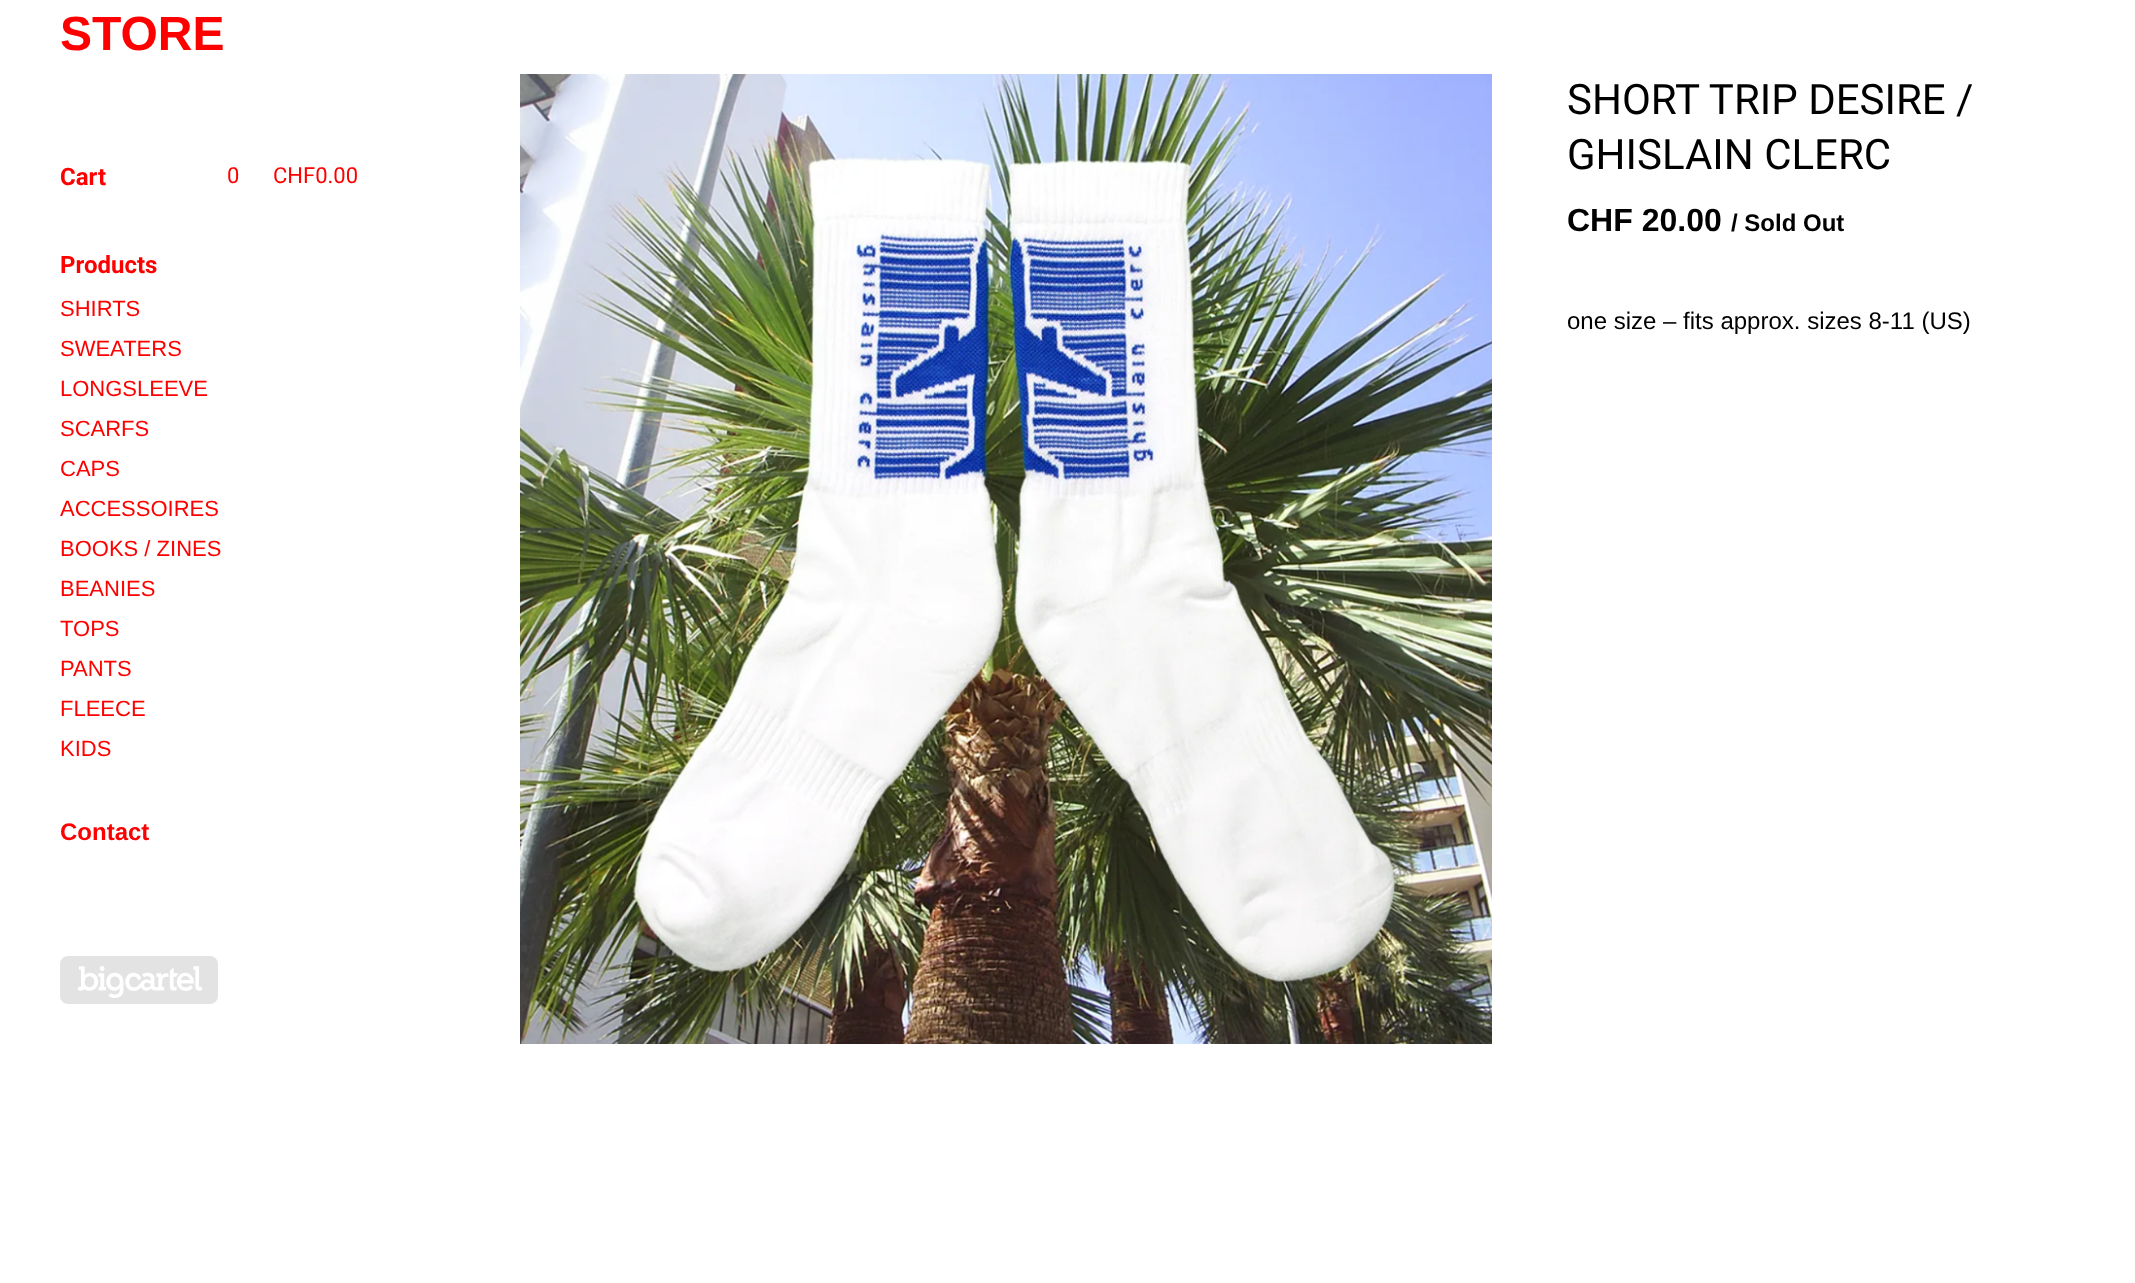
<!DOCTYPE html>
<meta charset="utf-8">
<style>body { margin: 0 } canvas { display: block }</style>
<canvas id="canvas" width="2135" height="1283"></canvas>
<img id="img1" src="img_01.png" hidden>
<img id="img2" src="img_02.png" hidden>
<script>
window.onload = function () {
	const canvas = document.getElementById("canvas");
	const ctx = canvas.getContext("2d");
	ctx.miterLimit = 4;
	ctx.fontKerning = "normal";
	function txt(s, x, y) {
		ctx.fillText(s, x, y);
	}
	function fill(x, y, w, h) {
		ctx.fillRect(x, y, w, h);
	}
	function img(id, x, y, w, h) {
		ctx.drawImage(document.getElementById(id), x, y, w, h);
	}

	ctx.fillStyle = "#FFFFFF";
	fill(0, 0, 2135, 1283);
	img("img1", 60, 956, 158, 48);
	img("img2", 520, 74, 972, 970);
	ctx.font = "bold 48px Liberation Sans";
	ctx.fillStyle = "#FF0000";
	txt("STORE", 60, 50);
	ctx.font = "bold 24px Roboto";
	txt("Cart", 60, 185);
	ctx.font = "22px Roboto";
	txt("0", 227, 183);
	txt("CHF0.00", 273, 183);
	ctx.font = "bold 24px Roboto";
	txt("Products", 60, 273);
	ctx.font = "22px Liberation Sans";
	txt("SHIRTS", 60, 316);
	txt("SWEATERS", 60, 356);
	txt("LONGSLEEVE", 60, 396);
	txt("SCARFS", 60, 436);
	txt("CAPS", 60, 476);
	txt("ACCESSOIRES", 60, 516);
	txt("BOOKS / ZINES", 60, 556);
	txt("BEANIES", 60, 596);
	txt("TOPS", 60, 636);
	txt("PANTS", 60, 676);
	txt("FLEECE", 60, 716);
	txt("KIDS", 60, 756);
	ctx.font = "bold 24px Liberation Sans";
	txt("Contact", 60, 840);
	ctx.font = "42px Roboto";
	ctx.fillStyle = "#000000";
	txt("SHORT TRIP DESIRE /", 1567, 114);
	txt("GHISLAIN CLERC", 1567, 169);
	ctx.font = "bold 32px Liberation Sans";
	txt("CHF 20.00", 1567, 231);
	ctx.font = "bold 24px Liberation Sans";
	txt("/ Sold Out", 1731, 231);
	ctx.font = "24px Liberation Sans";
	txt("one size – fits approx. sizes 8-11 (US)", 1567, 329);
};
</script>
